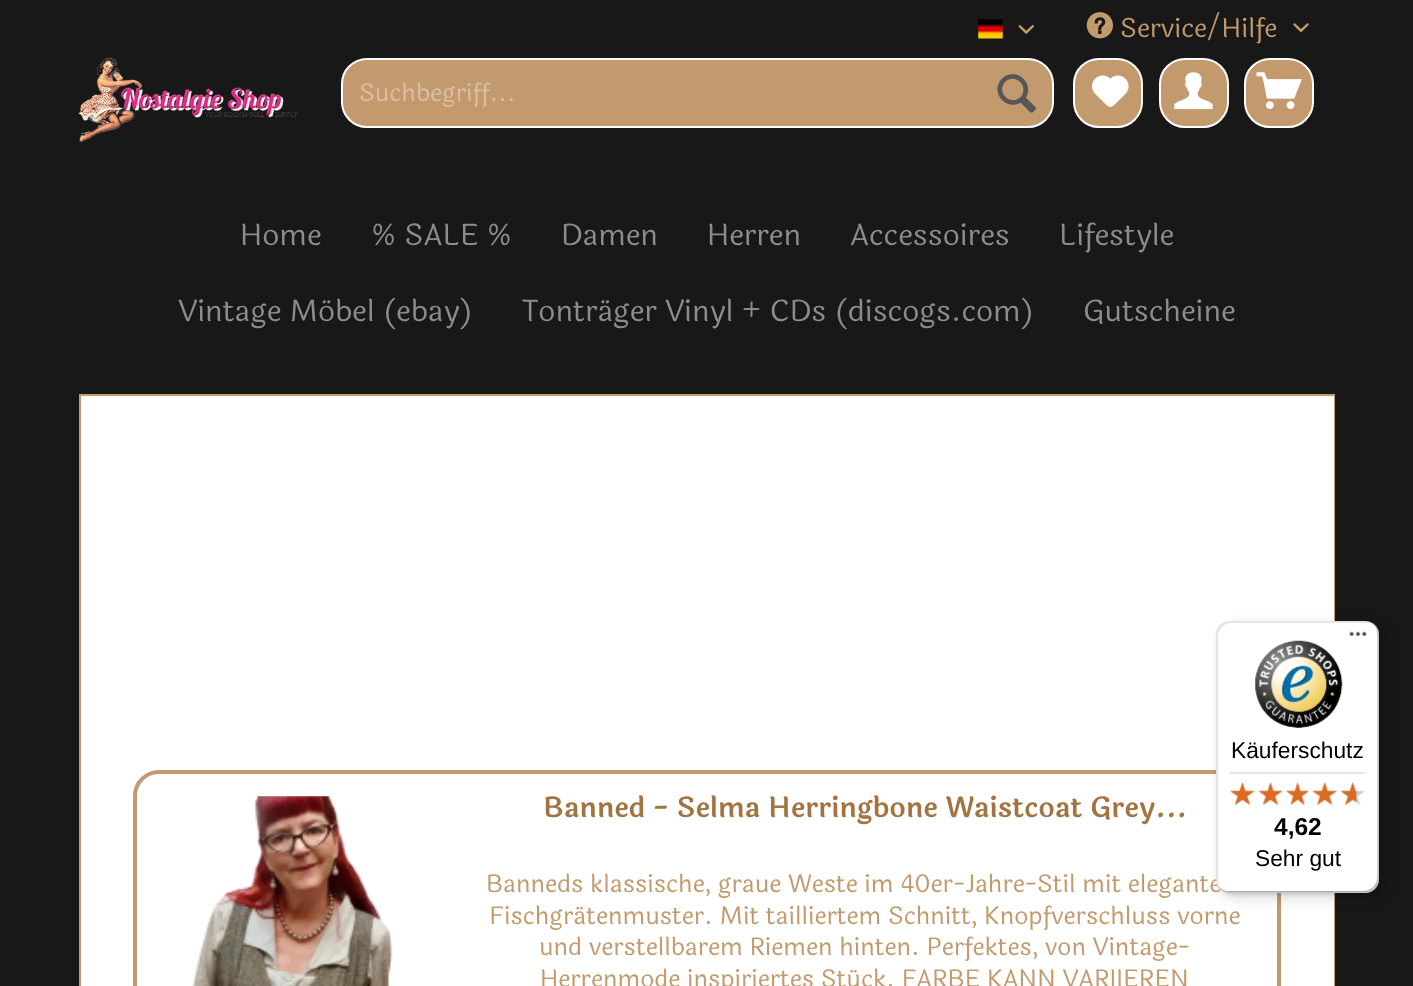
<!DOCTYPE html>
<meta charset="utf-8">
<style>body { margin: 0 } canvas { display: block }</style>
<canvas id="canvas" width="1413" height="986"></canvas>
<img id="img1" src="img_01.png" hidden>
<img id="img2" src="img_02.png" hidden>
<img id="img3" src="img_03.png" hidden>
<img id="img4" src="img_04.png" hidden>
<img id="img5" src="img_05.png" hidden>
<img id="img6" src="img_06.png" hidden>
<img id="img7" src="img_07.png" hidden>
<img id="img8" src="img_08.png" hidden>
<img id="img9" src="img_09.png" hidden>
<img id="img10" src="img_10.png" hidden>
<img id="img11" src="img_11.png" hidden>
<img id="img12" src="img_12.png" hidden>
<img id="img13" src="img_13.png" hidden>
<img id="img14" src="img_14.png" hidden>
<img id="img15" src="img_15.png" hidden>
<img id="img16" src="img_16.png" hidden>
<img id="img17" src="img_17.png" hidden>
<img id="img18" src="img_18.png" hidden>
<img id="img19" src="img_19.png" hidden>
<img id="img20" src="img_20.png" hidden>
<img id="img21" src="img_21.png" hidden>
<img id="img22" src="img_22.png" hidden>
<script>
window.onload = function () {
	const canvas = document.getElementById("canvas");
	const ctx = canvas.getContext("2d");
	ctx.miterLimit = 4;
	ctx.fontKerning = "normal";
	function txt(s, x, y) {
		ctx.fillText(s, x, y);
	}
	function fill(x, y, w, h) {
		ctx.fillRect(x, y, w, h);
	}
	function round(x, y, w, h, r) {
		ctx.beginPath();
		ctx.roundRect(x, y, w, h, r);
		ctx.fill();
	}
	function img(id, x, y, w, h) {
		ctx.drawImage(document.getElementById(id), x, y, w, h);
	}

	ctx.fillStyle = "#171817";
	fill(0, 0, 1413, 986);
	img("img1", 978, 19, 25, 20);
	img("img2", 1018, 25, 16, 9);
	img("img3", 1086, 12, 27, 27);
	img("img4", 1293, 23, 16, 9);
	img("img5", 78, 57, 220, 85);
	ctx.fillStyle = "#C39A6D";
	ctx.beginPath();
	ctx.roundRect(342, 59, 711, 68, 25);
	ctx.fill();
	ctx.strokeStyle = "#FFFFFF";
	ctx.lineWidth = 2;
	ctx.stroke();
	img("img6", 997, 74, 39, 39);
	ctx.beginPath();
	ctx.roundRect(1074, 59, 68, 68, 25);
	ctx.fill();
	ctx.stroke();
	img("img7", 1092, 75, 37, 32);
	ctx.beginPath();
	ctx.roundRect(1160, 59, 68, 68, 25);
	ctx.fill();
	ctx.stroke();
	img("img8", 1174, 72, 39, 38);
	ctx.beginPath();
	ctx.roundRect(1245, 59, 68, 68, 25);
	ctx.fill();
	ctx.stroke();
	img("img9", 1256, 72, 46, 37);
	ctx.strokeStyle = "#C39A6F";
	ctx.strokeRect(80, 395, 1254, 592);
	ctx.fillStyle = "#FFFFFF";
	fill(81, 396, 1253, 590);
	ctx.beginPath();
	ctx.roundRect(135, 772, 1144, 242, 24);
	ctx.strokeStyle = "#C39A6D";
	ctx.lineWidth = 4;
	ctx.stroke();
	img("img10", 192, 796, 201, 190);
	ctx.fillStyle = "rgba(0, 0, 0, 0.15)";
	ctx.filter = "blur(7px)";
	ctx.beginPath();
	ctx.roundRect(1222, 627, 162, 271, 14);
	ctx.fill();
	ctx.filter = "none";
	ctx.filter = "blur(2px)";
	ctx.beginPath();
	ctx.roundRect(1218, 623, 163, 271, 14);
	ctx.fill();
	ctx.filter = "none";
	ctx.font = "26.25px Laila";
	ctx.fillStyle = "#C39A6D";
	txt("Service/Hilfe", 1120, 37);
	ctx.font = "24.5px Laila";
	ctx.fillStyle = "#D9C0A3";
	txt("Suchbegriff...", 359, 101);
	ctx.font = "29.75px Laila";
	ctx.fillStyle = "#8B8C8B";
	txt("Home", 240, 245);
	txt("% SALE %", 371, 245);
	txt("Damen", 561, 245);
	txt("Herren", 707, 245);
	txt("Accessoires", 850, 245);
	txt("Lifestyle", 1059, 245);
	txt("Vintage Möbel (ebay)", 178, 321);
	txt("Tonträger Vinyl + CDs (discogs.com)", 522, 321);
	txt("Gutscheine", 1083, 321);
	ctx.font = "600 28px Laila";
	ctx.fillStyle = "#A17442";
	txt("Banned - Selma Herringbone Waistcoat Grey...", 543, 817);
	ctx.font = "24.5px Laila";
	ctx.fillStyle = "#C39A6D";
	txt("Banneds klassische, graue Weste im 40er-Jahre-Stil mit elegante", 486, 892);
	txt("Fischgrätenmuster. Mit tailliertem Schnitt, Knopfverschluss vorne", 489, 924);
	txt("und verstellbarem Riemen hinten. Perfektes, von Vintage-", 539, 955);
	txt("Herrenmode inspiriertes Stück. FARBE KANN VARIIEREN", 540, 987);
	ctx.fillStyle = "#FFFFFF";
	round(1216, 621, 163, 272, 14);
	ctx.fillStyle = "rgba(0, 0, 0, 0.1)";
	ctx.beginPath();
	ctx.moveTo(1232, 623);
	ctx.lineTo(1367, 623);
	ctx.bezierCurveTo(1370, 623, 1374, 624, 1376, 627);
	ctx.bezierCurveTo(1374, 623, 1370, 621, 1365, 621);
	ctx.lineTo(1230, 621);
	ctx.bezierCurveTo(1222, 621, 1216, 627, 1216, 635);
	ctx.lineTo(1216, 879);
	ctx.bezierCurveTo(1216, 885, 1219, 889, 1224, 892);
	ctx.bezierCurveTo(1220, 889, 1218, 885, 1218, 880);
	ctx.lineTo(1218, 637);
	ctx.bezierCurveTo(1218, 629, 1224, 623, 1232, 623);
	ctx.closePath();
	ctx.fill();
	ctx.fillStyle = "rgba(0, 0, 0, 0.2)";
	ctx.beginPath();
	ctx.moveTo(1218, 886);
	ctx.bezierCurveTo(1220, 890, 1225, 893, 1230, 893);
	ctx.lineTo(1365, 893);
	ctx.bezierCurveTo(1373, 893, 1379, 887, 1379, 879);
	ctx.lineTo(1379, 635);
	ctx.bezierCurveTo(1379, 629, 1376, 625, 1371, 622);
	ctx.bezierCurveTo(1375, 625, 1377, 629, 1377, 634);
	ctx.lineTo(1377, 877);
	ctx.bezierCurveTo(1377, 884, 1371, 891, 1363, 891);
	ctx.lineTo(1228, 891);
	ctx.bezierCurveTo(1224, 891, 1221, 889, 1218, 886);
	ctx.closePath();
	ctx.fill();
	ctx.fillStyle = "rgba(50, 50, 50, 0.2)";
	ctx.beginPath();
	ctx.moveTo(1217, 885);
	ctx.bezierCurveTo(1220, 890, 1224, 893, 1230, 893);
	ctx.lineTo(1365, 893);
	ctx.bezierCurveTo(1373, 893, 1379, 887, 1379, 879);
	ctx.lineTo(1379, 635);
	ctx.bezierCurveTo(1379, 631, 1378, 628, 1375, 626);
	ctx.bezierCurveTo(1377, 628, 1378, 631, 1378, 634);
	ctx.lineTo(1378, 877);
	ctx.bezierCurveTo(1378, 885, 1372, 891, 1364, 891);
	ctx.lineTo(1229, 891);
	ctx.bezierCurveTo(1224, 891, 1220, 889, 1217, 885);
	ctx.closePath();
	ctx.fill();
	ctx.fillStyle = "rgba(255, 255, 255, 0.3)";
	ctx.beginPath();
	ctx.moveTo(1218, 886);
	ctx.bezierCurveTo(1220, 890, 1225, 893, 1230, 893);
	ctx.lineTo(1365, 893);
	ctx.bezierCurveTo(1373, 893, 1379, 887, 1379, 879);
	ctx.lineTo(1379, 635);
	ctx.bezierCurveTo(1379, 630, 1377, 626, 1374, 624);
	ctx.bezierCurveTo(1376, 627, 1378, 630, 1378, 634);
	ctx.lineTo(1378, 878);
	ctx.bezierCurveTo(1378, 885, 1372, 892, 1364, 892);
	ctx.lineTo(1229, 892);
	ctx.bezierCurveTo(1225, 892, 1220, 889, 1218, 886);
	ctx.closePath();
	ctx.fill();
	img("img11", 1349, 631, 18, 5);
	img("img12", 1255, 640, 88, 88);
	ctx.font = "22.75px Liberation Sans";
	ctx.fillStyle = "#000000";
	txt("Käuferschutz", 1231, 758);
	ctx.fillStyle = "#E5E5E5";
	fill(1230, 772, 135, 2);
	img("img13", 1230, 782, 25, 23);
	img("img14", 1258, 782, 25, 23);
	img("img15", 1286, 782, 23, 23);
	img("img16", 1312, 782, 25, 23);
	img("img17", 1341, 782, 24, 23);
	img("img18", 1230, 782, 25, 23);
	img("img19", 1258, 782, 25, 23);
	img("img20", 1286, 782, 23, 23);
	img("img21", 1312, 782, 25, 23);
	img("img22", 1340, 782, 17, 23);
	ctx.font = "bold 24.5px Liberation Sans";
	ctx.fillStyle = "#000000";
	txt("4,62", 1274, 835);
	ctx.font = "22.75px Liberation Sans";
	txt("Sehr gut", 1255, 866);
};
</script>
